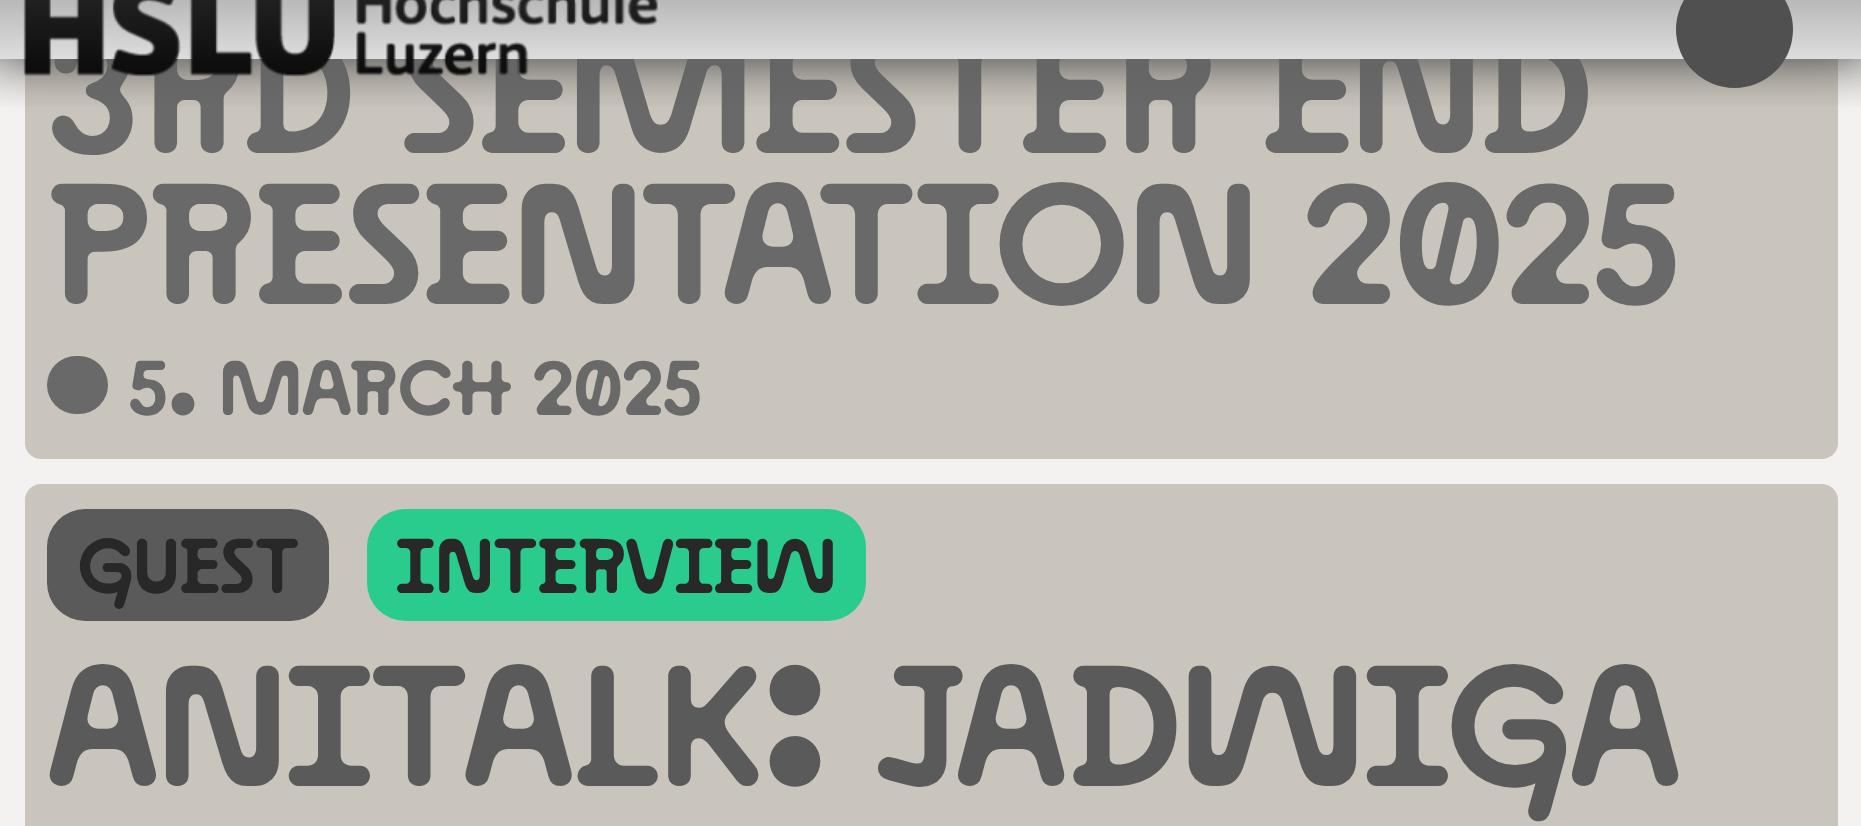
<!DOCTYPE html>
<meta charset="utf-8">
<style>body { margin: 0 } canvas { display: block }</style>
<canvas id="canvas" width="1861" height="826"></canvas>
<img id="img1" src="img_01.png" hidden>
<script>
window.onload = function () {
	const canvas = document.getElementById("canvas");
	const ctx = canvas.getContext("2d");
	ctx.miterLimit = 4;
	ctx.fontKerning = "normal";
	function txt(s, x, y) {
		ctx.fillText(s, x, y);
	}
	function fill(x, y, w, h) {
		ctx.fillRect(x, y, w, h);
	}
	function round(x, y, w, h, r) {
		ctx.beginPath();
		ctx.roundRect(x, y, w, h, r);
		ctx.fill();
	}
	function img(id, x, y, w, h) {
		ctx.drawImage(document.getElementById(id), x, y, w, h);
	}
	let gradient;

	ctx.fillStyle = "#F3F2F0";
	fill(0, 0, 1861, 826);
	ctx.fillStyle = "#CAC5BC";
	round(25, -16, 1813, 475, 16);
	ctx.fillStyle = "#505050";
	ctx.filter = "blur(22.5px)";
	ctx.beginPath();
	ctx.rect(0, 0, 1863, 59);
	ctx.fill();
	ctx.filter = "none";
	ctx.fillStyle = "#696969";
	round(47, 356, 61, 58, 29);
	ctx.fillStyle = "#CAC5BC";
	round(25, 484, 1813, 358, 16);
	ctx.fillStyle = "#5A5A5A";
	round(47, 509, 282, 112, 38);
	ctx.fillStyle = "#2ACC8E";
	round(367, 509, 499, 112, 38);
	ctx.font = "167.75px 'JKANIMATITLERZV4'";
	ctx.fillStyle = "#696969";
	txt("3rd Semester End", 48, 153);
	ctx.fillStyle = "#FFFFFF";
	fill(0, 0, 1861, 59);
	ctx.fillStyle = "#505050";
	ctx.beginPath();
	ctx.arc(1734.5, 29.5, 58.5, 0, Math.PI * 2);
	ctx.fill();
	img("img1", 23, 0, 635, 77);
	gradient = ctx.createLinearGradient(932, 113, 932, 0);
	gradient.addColorStop(0, "rgba(80, 80, 80, 0)");
	gradient.addColorStop(1, "rgba(80, 80, 80, 0.4)");
	ctx.fillStyle = gradient;
	fill(0, 0, 1861, 107);
	ctx.fillStyle = "#696969";
	txt("Presentation 2025", 48, 304);
	ctx.font = "75.5px 'JKANIMATITLERZV4'";
	txt("5. MARCH 2025", 129, 415);
	ctx.fillStyle = "#282828";
	txt("GUEST", 78, 593);
	txt("INTERVIEW", 396, 593);
	ctx.font = "167.75px 'JKANIMATITLERZV4'";
	ctx.fillStyle = "#5A5A5A";
	txt("AniTalk: Jadwiga", 48, 786);
};
</script>
